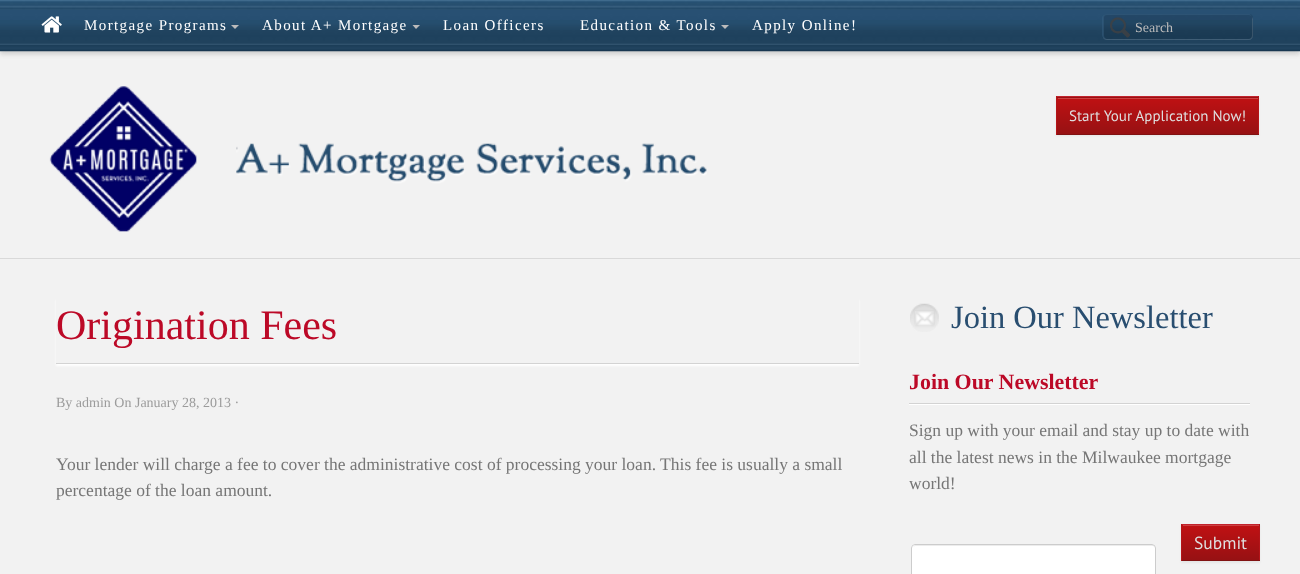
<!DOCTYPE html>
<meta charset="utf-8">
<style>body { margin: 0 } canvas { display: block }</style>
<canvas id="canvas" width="1300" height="574"></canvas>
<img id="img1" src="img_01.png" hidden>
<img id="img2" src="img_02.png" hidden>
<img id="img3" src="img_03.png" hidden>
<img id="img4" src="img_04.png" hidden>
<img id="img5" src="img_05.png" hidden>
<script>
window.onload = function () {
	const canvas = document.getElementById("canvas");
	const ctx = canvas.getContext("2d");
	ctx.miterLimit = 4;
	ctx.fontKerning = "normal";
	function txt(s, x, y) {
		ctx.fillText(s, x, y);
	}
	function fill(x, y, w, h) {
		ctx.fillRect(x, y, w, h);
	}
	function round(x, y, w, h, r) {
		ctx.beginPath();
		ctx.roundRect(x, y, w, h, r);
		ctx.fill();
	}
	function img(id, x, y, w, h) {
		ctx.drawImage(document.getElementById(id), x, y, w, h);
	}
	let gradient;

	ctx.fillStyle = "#F2F2F2";
	fill(0, 0, 1300, 574);
	ctx.fillStyle = "rgba(50, 50, 50, 0.2)";
	ctx.filter = "blur(2.5px)";
	ctx.beginPath();
	ctx.rect(0, 3, 1300, 51);
	ctx.fill();
	ctx.filter = "none";
	img("img1", 0, 0, 1300, 52);
	img("img2", 41, 16, 21, 17);
	ctx.fillStyle = "#BBBBBB";
	ctx.beginPath();
	ctx.moveTo(231, 25);
	ctx.lineTo(239, 25);
	ctx.lineTo(235, 29);
	ctx.closePath();
	ctx.fill();
	ctx.beginPath();
	ctx.moveTo(412.5, 25);
	ctx.lineTo(420, 25);
	ctx.lineTo(416, 29);
	ctx.closePath();
	ctx.fill();
	ctx.beginPath();
	ctx.moveTo(721, 25);
	ctx.lineTo(729, 25);
	ctx.lineTo(725, 29);
	ctx.closePath();
	ctx.fill();
	ctx.fillStyle = "rgba(255, 255, 255, 0.15)";
	ctx.beginPath();
	ctx.moveTo(1103, 37);
	ctx.bezierCurveTo(1103, 39, 1105, 40, 1107, 40);
	ctx.lineTo(1249, 40);
	ctx.bezierCurveTo(1251, 40, 1253, 38, 1253, 36);
	ctx.lineTo(1253, 19);
	ctx.lineTo(1252, 17);
	ctx.lineTo(1252, 35);
	ctx.bezierCurveTo(1252, 37, 1251, 39, 1248, 39);
	ctx.lineTo(1107, 39);
	ctx.bezierCurveTo(1105, 39, 1104, 38, 1103, 37);
	ctx.closePath();
	ctx.fill();
	ctx.fillStyle = "rgba(0, 0, 0, 0.1)";
	round(1103, 14, 150, 25, 4);
	img("img3", 1110, 17, 20, 21);
	ctx.fillStyle = "rgba(60, 102, 138, 0.4)";
	ctx.beginPath();
	ctx.moveTo(1107, 14);
	ctx.lineTo(1248, 14);
	ctx.bezierCurveTo(1251, 14, 1252, 16, 1252, 18);
	ctx.lineTo(1252, 35);
	ctx.bezierCurveTo(1252, 37, 1251, 39, 1248, 39);
	ctx.lineTo(1107, 39);
	ctx.bezierCurveTo(1104, 39, 1102, 37, 1102, 35);
	ctx.lineTo(1102, 18);
	ctx.bezierCurveTo(1102, 16, 1104, 14, 1107, 14);
	ctx.closePath();
	ctx.moveTo(1107, 15);
	ctx.lineTo(1248, 15);
	ctx.bezierCurveTo(1251, 15, 1252, 16, 1252, 18);
	ctx.lineTo(1252, 35);
	ctx.bezierCurveTo(1252, 37, 1251, 39, 1248, 39);
	ctx.lineTo(1107, 39);
	ctx.bezierCurveTo(1105, 39, 1104, 37, 1104, 35);
	ctx.lineTo(1104, 18);
	ctx.bezierCurveTo(1104, 16, 1105, 15, 1107, 15);
	ctx.closePath();
	ctx.fill("evenodd");
	ctx.fillStyle = "#D9D9D9";
	fill(0, 258, 1300, 1);
	img("img4", 49, 86, 658, 146);
	ctx.fillStyle = "rgba(0, 0, 0, 0.05)";
	ctx.filter = "blur(1px)";
	ctx.beginPath();
	ctx.rect(1056, 98, 203, 38);
	ctx.fill();
	ctx.filter = "none";
	gradient = ctx.createLinearGradient(1158, 61, 1158, 98);
	gradient.addColorStop(0, "#C01113");
	gradient.addColorStop(1, "#971113");
	ctx.fillStyle = gradient;
	fill(1056, 97, 203, 1);
	gradient = ctx.createLinearGradient(1158, 97, 1158, 134);
	gradient.addColorStop(0, "#C01113");
	gradient.addColorStop(1, "#971113");
	ctx.fillStyle = gradient;
	fill(1057, 98, 201, 36);
	ctx.fillStyle = "#CB4142";
	fill(1058, 98, 200, 1);
	ctx.fillStyle = "#C2222C";
	fill(1056, 96, 203, 1);
	ctx.fillStyle = "#B31519";
	fill(1258, 96, 1, 39);
	ctx.fillStyle = "#811212";
	fill(1056, 134, 203, 1);
	ctx.fillStyle = "#B31519";
	fill(1056, 96, 1, 39);
	ctx.save();
	ctx.beginPath();
	ctx.moveTo(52, 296);
	ctx.lineTo(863, 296);
	ctx.lineTo(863, 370);
	ctx.lineTo(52, 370);
	ctx.closePath();
	ctx.moveTo(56, 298);
	ctx.lineTo(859, 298);
	ctx.lineTo(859, 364);
	ctx.lineTo(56, 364);
	ctx.closePath();
	ctx.clip("evenodd");
	ctx.fillStyle = "#FFFFFF";
	ctx.filter = "blur(1px)";
	ctx.beginPath();
	ctx.rect(56, 300, 803, 66);
	ctx.fill();
	ctx.filter = "none";
	ctx.restore();
	ctx.fillStyle = "#D3D3D3";
	fill(56, 363, 803, 1);
	img("img5", 910, 303, 29, 29);
	ctx.save();
	ctx.beginPath();
	ctx.moveTo(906, 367);
	ctx.lineTo(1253, 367);
	ctx.lineTo(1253, 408);
	ctx.lineTo(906, 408);
	ctx.closePath();
	ctx.moveTo(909, 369);
	ctx.lineTo(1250, 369);
	ctx.lineTo(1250, 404);
	ctx.lineTo(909, 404);
	ctx.closePath();
	ctx.clip("evenodd");
	ctx.fillStyle = "#FFFFFF";
	ctx.filter = "blur(0.5px)";
	ctx.beginPath();
	ctx.rect(909, 370, 341, 35);
	ctx.fill();
	ctx.filter = "none";
	ctx.restore();
	fill(909, 403, 341, 1);
	ctx.fillStyle = "#FFFFFF";
	round(911, 544, 245, 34, 4);
	ctx.fillStyle = "#ECECEC";
	ctx.beginPath();
	ctx.moveTo(915, 546);
	ctx.lineTo(1153, 546);
	ctx.lineTo(1155, 547);
	ctx.lineTo(1155, 549);
	ctx.bezierCurveTo(1155, 547, 1155, 545, 1152, 545);
	ctx.lineTo(915, 545);
	ctx.lineTo(913, 547);
	ctx.closePath();
	ctx.fill();
	ctx.beginPath();
	ctx.roundRect(911.5, 544.5, 244, 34, 3.5);
	ctx.strokeStyle = "#CCCCCC";
	ctx.stroke();
	ctx.fillStyle = "rgba(0, 0, 0, 0.05)";
	ctx.filter = "blur(1px)";
	ctx.beginPath();
	ctx.rect(1181, 525, 79, 38);
	ctx.fill();
	ctx.filter = "none";
	gradient = ctx.createLinearGradient(1221, 525, 1221, 560);
	gradient.addColorStop(0, "#C01113");
	gradient.addColorStop(1, "#971113");
	ctx.fillStyle = gradient;
	fill(1182, 525, 77, 35);
	ctx.fillStyle = "#CC4142";
	fill(1183, 525, 76, 1);
	ctx.fillStyle = "#C2222C";
	fill(1181, 524, 79, 1);
	ctx.fillStyle = "#B31519";
	fill(1259, 524, 1, 37);
	ctx.fillStyle = "#811212";
	fill(1181, 560, 79, 1);
	ctx.fillStyle = "#B31519";
	fill(1181, 524, 1, 37);
	ctx.letterSpacing = "1.4px";
	ctx.font = "15px Liberation Serif";
	ctx.fillStyle = "#FFFFFF";
	txt("Mortgage Programs", 84, 30);
	txt("About A+ Mortgage", 262, 30);
	txt("Loan Officers", 443, 30);
	txt("Education & Tools", 580, 30);
	txt("Apply Online!", 752, 30);
	ctx.letterSpacing = "0px";
	ctx.font = "14px Liberation Serif";
	ctx.fillStyle = "#BBBBBB";
	txt("Search", 1135, 32);
	ctx.font = "15px PT Sans";
	ctx.fillStyle = "#DFDFDF";
	txt("Start Your Application Now!", 1069, 121);
	ctx.font = "42px Liberation Serif";
	ctx.fillStyle = "#BC0927";
	txt("Origination Fees", 56, 339);
	ctx.font = "14px Liberation Serif";
	ctx.fillStyle = "#9B9B9B";
	txt("By admin On January 28, 2013 ·", 56, 407);
	ctx.font = "17.5px Liberation Serif";
	ctx.fillStyle = "#767676";
	txt("Your lender will charge a fee to cover the administrative cost of processing your loan. This fee is usually a small", 56, 470);
	txt("percentage of the loan amount.", 56, 496);
	ctx.font = "32.5px Liberation Serif";
	ctx.fillStyle = "#294E70";
	txt("Join Our Newsletter", 951, 328);
	ctx.font = "bold 21.9px Liberation Serif";
	ctx.fillStyle = "#BC0927";
	txt("Join Our Newsletter", 909, 389);
	ctx.font = "17.5px Liberation Serif";
	ctx.fillStyle = "#767676";
	txt("Sign up with your email and stay up to date with", 909, 436);
	txt("all the latest news in the Milwaukee mortgage", 909, 463);
	txt("world!", 909, 489);
	ctx.font = "17.5px PT Sans";
	ctx.fillStyle = "#DFDFDF";
	txt("Submit", 1194, 549);
};
</script>
